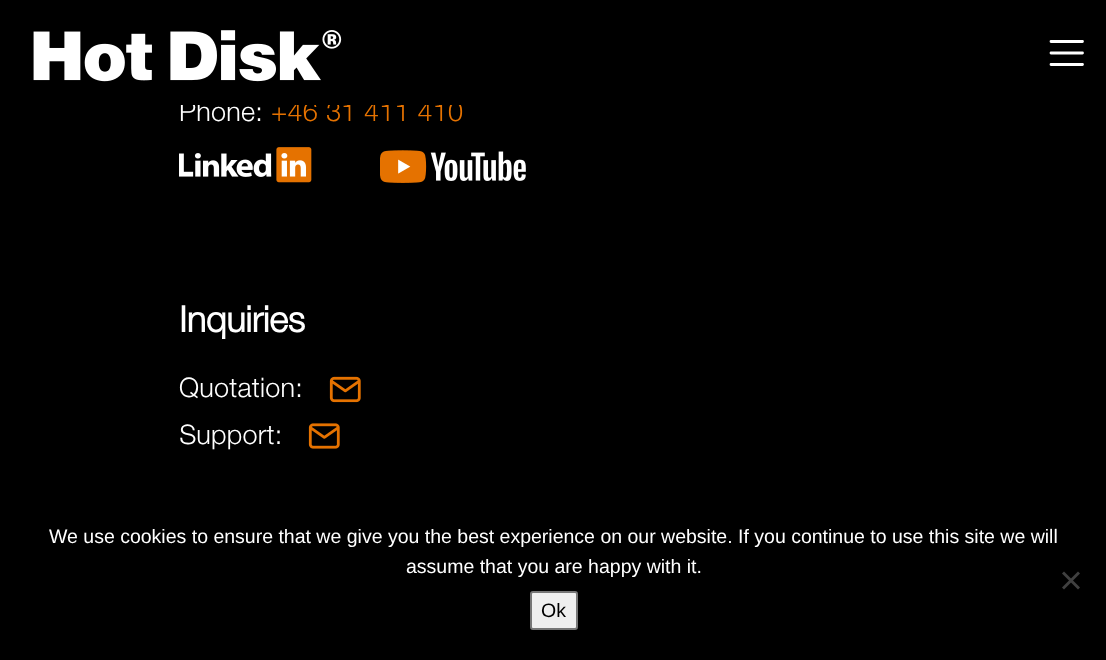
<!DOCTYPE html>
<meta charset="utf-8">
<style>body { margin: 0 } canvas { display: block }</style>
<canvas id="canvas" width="1106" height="660"></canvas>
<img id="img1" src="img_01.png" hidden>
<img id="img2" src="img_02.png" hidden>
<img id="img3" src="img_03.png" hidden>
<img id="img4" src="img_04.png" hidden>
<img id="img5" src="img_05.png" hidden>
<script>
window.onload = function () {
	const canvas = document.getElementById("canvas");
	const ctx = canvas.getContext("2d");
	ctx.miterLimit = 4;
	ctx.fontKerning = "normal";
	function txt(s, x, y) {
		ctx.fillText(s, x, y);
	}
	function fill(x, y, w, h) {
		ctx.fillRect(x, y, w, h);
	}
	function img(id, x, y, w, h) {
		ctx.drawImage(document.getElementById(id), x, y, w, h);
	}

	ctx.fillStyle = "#000000";
	fill(0, 0, 1106, 660);
	img("img1", 33, 30, 309, 52);
	ctx.beginPath();
	ctx.moveTo(1051, 41.5);
	ctx.lineTo(1082.5, 41.5);
	ctx.moveTo(1051, 53);
	ctx.lineTo(1082.5, 53);
	ctx.moveTo(1051, 64.5);
	ctx.lineTo(1082.5, 64.5);
	ctx.strokeStyle = "#FFFFFF";
	ctx.lineWidth = 2.8;
	ctx.lineCap = "round";
	ctx.stroke();
	img("img2", 179, 147, 133, 36);
	img("img3", 380, 150, 146, 33);
	img("img4", 329, 376, 32, 27);
	img("img5", 308, 423, 32, 26);
	ctx.fillStyle = "#404040";
	ctx.beginPath();
	ctx.moveTo(1078, 571.5);
	ctx.lineTo(1080, 573.5);
	ctx.lineTo(1064, 589.5);
	ctx.lineTo(1062, 587.5);
	ctx.closePath();
	ctx.fill();
	ctx.beginPath();
	ctx.moveTo(1062, 573.5);
	ctx.lineTo(1064, 571.5);
	ctx.lineTo(1080, 587.5);
	ctx.lineTo(1078, 589.5);
	ctx.closePath();
	ctx.fill();
	ctx.fillStyle = "#EFEFEF";
	ctx.beginPath();
	ctx.roundRect(531, 592, 46, 37, 2);
	ctx.fill();
	ctx.strokeStyle = "#767676";
	ctx.lineWidth = 2;
	ctx.stroke();
	ctx.letterSpacing = "0.25px";
	ctx.font = "27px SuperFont";
	ctx.fillStyle = "#FFFFFF";
	txt("Phone:", 179, 121);
	ctx.fillStyle = "#E57200";
	txt("+46 31 411 410", 271, 121);
	ctx.fillStyle = "#000000";
	fill(180, 101, 282, 4);
	ctx.letterSpacing = "-0.25px";
	ctx.font = "bold 36px SuperFont";
	ctx.fillStyle = "#FFFFFF";
	txt("Inquiries", 179, 332);
	ctx.letterSpacing = "0.25px";
	ctx.font = "27px SuperFont";
	txt("Quotation:", 179, 397);
	txt("Support:", 179, 444);
	ctx.letterSpacing = "0px";
	ctx.font = "19.5px Liberation Sans";
	txt("We use cookies to ensure that we give you the best experience on our website. If you continue to use this site we will", 49, 543);
	txt("assume that you are happy with it.", 406, 573);
	ctx.fillStyle = "#000000";
	txt("Ok", 541, 617);
};
</script>
